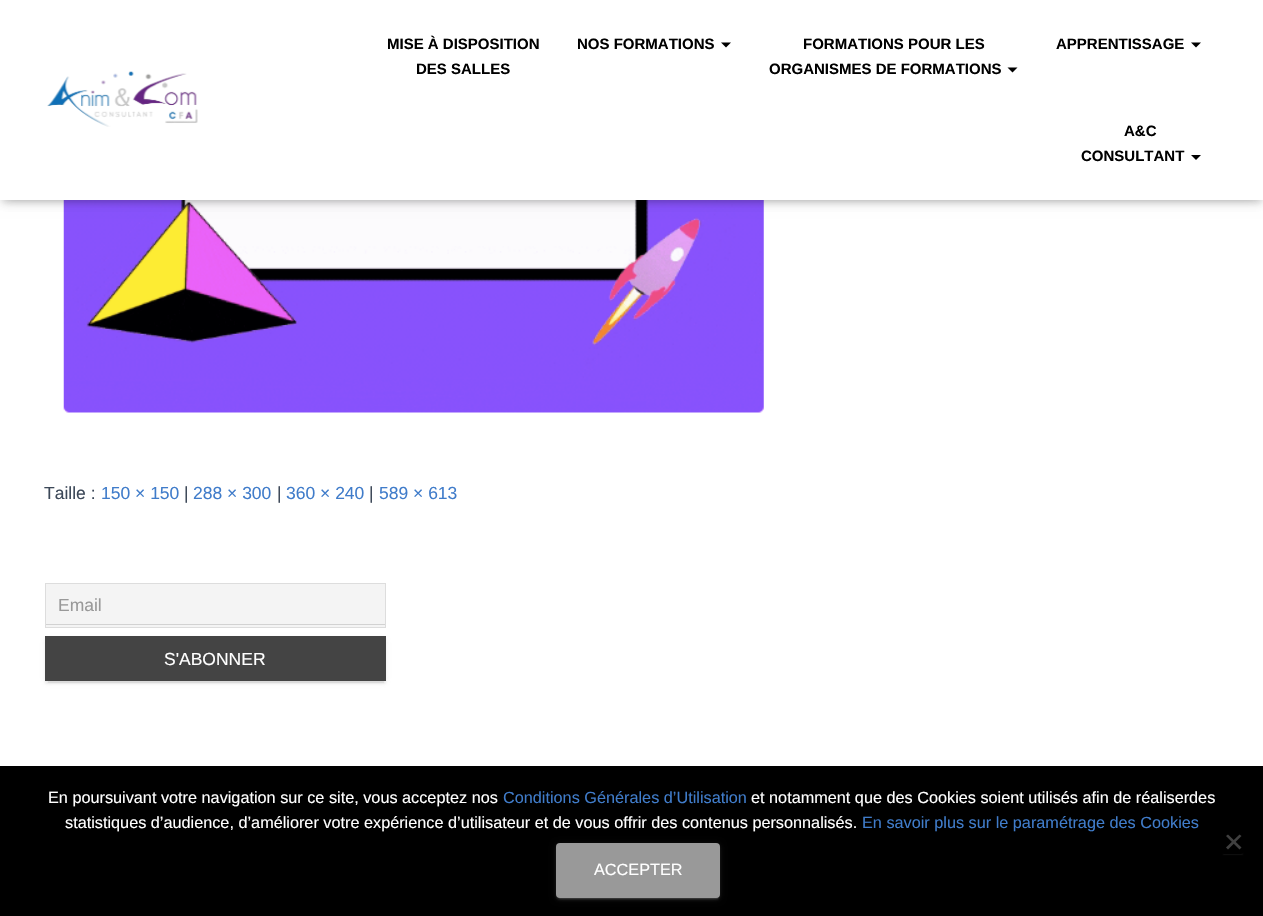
#include "include/core/SkBlurTypes.h"
#include "include/core/SkCanvas.h"
#include "include/core/SkData.h"
#include "include/core/SkFont.h"
#include "include/core/SkFontMgr.h"
#include "include/core/SkImage.h"
#include "include/core/SkMaskFilter.h"
#include "include/core/SkPaint.h"
#include "include/core/SkPathBuilder.h"
#include "include/core/SkTextBlob.h"
#include "include/effects/SkDashPathEffect.h"
#include "include/effects/SkGradientShader.h"
#include "include/utils/SkParsePath.h"

extern sk_sp<SkFontMgr> fontMgr;

static SkFont font(const char* family, int weight, float size, bool italic = false) {
    SkFontStyle style(weight, SkFontStyle::kNormal_Width,
        italic ? SkFontStyle::kItalic_Slant : SkFontStyle::kUpright_Slant);
    SkFont result(fontMgr->matchFamilyStyle(family, style), size);
    result.setSubpixel(true);
    return result;
}

static void drawLabel(SkCanvas* canvas, const char* s, float x, float y, const SkFont& font, SkColor color) {
    SkPaint ink(SkColor4f::FromColor(color));
    ink.setAntiAlias(true);
    canvas->drawString(s, x, y, font, ink);
}

static void fillRect(SkCanvas* canvas, float x, float y, float w, float h, SkColor color) {
    SkPaint ink(SkColor4f::FromColor(color));
    ink.setAntiAlias(true);
    canvas->drawRect(SkRect::MakeXYWH(x, y, w, h), ink);
}

static void fillRRect(SkCanvas* canvas, float x, float y, float w, float h, float radius, SkColor color) {
    SkPaint ink(SkColor4f::FromColor(color));
    ink.setAntiAlias(true);
    canvas->drawRoundRect(SkRect::MakeXYWH(x, y, w, h), radius, radius, ink);
}

static void drawPhoto(SkCanvas* canvas, const char* path, float x, float y, float w, float h) {
    auto image = SkImages::DeferredFromEncodedData(SkData::MakeFromFileName(path));
    canvas->drawImageRect(image, SkRect::MakeXYWH(x, y, w, h), SkSamplingOptions());
}

static SkPath parsePath(const char* data, bool evenOdd = false) {
    SkPath result = *SkParsePath::FromSVGString(data);
    if (evenOdd) result.setFillType(SkPathFillType::kEvenOdd);
    return result;
}

void draw(SkCanvas* canvas) {
    SkPaint paint;
    paint.setAntiAlias(true);
    canvas->clear(0xFFFFFFFF);
    drawPhoto(canvas, "assets/img2.png", 63, 200, 701, 213);
    paint.setColor(0x1A000000);
    paint.setMaskFilter(SkMaskFilter::MakeBlur(kNormal_SkBlurStyle, 3));
    canvas->drawRect(SkRect::MakeXYWH(3, 8, 1258, 195), paint);
    paint.setMaskFilter(nullptr);
    paint.setColor(0x1F000000);
    paint.setMaskFilter(SkMaskFilter::MakeBlur(kNormal_SkBlurStyle, 6));
    canvas->drawRect(SkRect::MakeXYWH(0, 1, 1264, 200), paint);
    paint.setMaskFilter(nullptr);
    paint.setColor(0x6B000000);
    paint.setMaskFilter(SkMaskFilter::MakeBlur(kNormal_SkBlurStyle, 6));
    canvas->drawRect(SkRect::MakeXYWH(8, 9, 1248, 185), paint);
    paint.setMaskFilter(nullptr);
    fillRect(canvas, 0, 0, 1263, 200, 0xFFFFFFFF);
    drawPhoto(canvas, "assets/img1.png", 47, 71, 151, 56);
    SkFont font1 = font("Liberation Sans", 700, 15);
    drawLabel(canvas, "MISE À DISPOSITION", 387, 49, font1, 0xFF000000);
    drawLabel(canvas, "DES SALLES", 416, 74, font1, 0xFF000000);
    drawLabel(canvas, "NOS FORMATIONS", 577, 49, font1, 0xFF000000);
    paint.setColor(0xFF000000);
    canvas->drawPath(parsePath("M721 42.5H731L726 47.5Z"), paint);
    drawLabel(canvas, "FORMATIONS POUR LES", 803, 49, font1, 0xFF000000);
    drawLabel(canvas, "ORGANISMES DE FORMATIONS", 769, 74, font1, 0xFF000000);
    canvas->drawPath(parsePath("M1007.5 67.5H1017.5L1012.5 72.5Z"), paint);
    drawLabel(canvas, "APPRENTISSAGE", 1056, 49, font1, 0xFF000000);
    canvas->drawPath(parsePath("M1191 42.5H1201L1196 47.5Z"), paint);
    drawLabel(canvas, "A&C", 1124, 136, font1, 0xFF000000);
    drawLabel(canvas, "CONSULTANT", 1081, 161, font1, 0xFF000000);
    canvas->drawPath(parsePath("M1191 155H1201L1196 160Z"), paint);
    SkFont font2 = font("Liberation Sans", 400, 17.5f);
    drawLabel(canvas, "Taille :", 44, 499, font2, 0xFF3C4858);
    drawLabel(canvas, "150 × 150", 101, 499, font2, 0xFF407CCA);
    drawLabel(canvas, "|", 184, 499, font2, 0xFF3C4858);
    drawLabel(canvas, "288 × 300", 193, 499, font2, 0xFF407CCA);
    drawLabel(canvas, "|", 277, 499, font2, 0xFF3C4858);
    drawLabel(canvas, "360 × 240", 286, 499, font2, 0xFF407CCA);
    drawLabel(canvas, "|", 369, 499, font2, 0xFF3C4858);
    drawLabel(canvas, "589 × 613", 379, 499, font2, 0xFF407CCA);
    fillRect(canvas, 46, 584, 339, 43, 0xFFF4F4F4);
    fillRect(canvas, 46, 624, 339, 1, 0xFFD2D2D2);
    paint.setStroke(true);
    paint.setStrokeWidth(1);
    paint.setColor(0xFFDDDDDD);
    canvas->drawRect(SkRect::MakeXYWH(45.5f, 583.5f, 340, 44), paint);
    drawLabel(canvas, "Email", 58, 611, font2, 0xFF999999);
    paint.setStroke(false);
    paint.setColor(0x1F999999);
    paint.setMaskFilter(SkMaskFilter::MakeBlur(kNormal_SkBlurStyle, 3));
    canvas->drawRect(SkRect::MakeXYWH(45, 638, 341, 45), paint);
    paint.setMaskFilter(nullptr);
    paint.setColor(0x33999999);
    paint.setMaskFilter(SkMaskFilter::MakeBlur(kNormal_SkBlurStyle, 0.5f));
    canvas->drawRect(SkRect::MakeXYWH(48, 643, 336, 40), paint);
    paint.setMaskFilter(nullptr);
    paint.setColor(0x24999999);
    paint.setMaskFilter(SkMaskFilter::MakeBlur(kNormal_SkBlurStyle, 1));
    canvas->drawRect(SkRect::MakeXYWH(45, 639, 341, 45), paint);
    paint.setMaskFilter(nullptr);
    fillRect(canvas, 45, 636, 341, 45, 0xFF444444);
    drawLabel(canvas, "S'ABONNER", 164, 665, font2, 0xFFFFFFFF);
    fillRect(canvas, 0, 766, 1263, 150, 0xFF000000);
    SkFont font3 = font("Liberation Sans", 400, 16.25f);
    drawLabel(canvas, "En poursuivant votre navigation sur ce site, vous acceptez nos", 48, 803, font3, 0xFFFFFFFF);
    drawLabel(canvas, "Conditions Générales d’Utilisation", 503, 803, font3, 0xFF407CCA);
    drawLabel(canvas, "et notamment que des Cookies soient utilisés afin de réaliserdes", 751, 803, font3, 0xFFFFFFFF);
    drawLabel(canvas, "statistiques d’audience, d’améliorer votre expérience d’utilisateur et de vous offrir des contenus personnalisés.", 65, 828, font3, 0xFFFFFFFF);
    drawLabel(canvas, "En savoir plus sur le paramétrage des Cookies", 862, 828, font3, 0xFF407CCA);
    canvas->save();
    canvas->clipPath(parsePath("M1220 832H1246V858H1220ZM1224 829H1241C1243 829 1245 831 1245 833V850C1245 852 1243 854 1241 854H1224C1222 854 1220 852 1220 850V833C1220 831 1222 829 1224 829Z", true), true);
    paint.setColor(0x334D4D4D);
    paint.setMaskFilter(SkMaskFilter::MakeBlur(kNormal_SkBlurStyle, 0.5f));
    canvas->drawRoundRect(SkRect::MakeXYWH(1223, 835, 20, 20), 1, 1, paint);
    paint.setMaskFilter(nullptr);
    canvas->restore();
    paint.setColor(0xFF404040);
    canvas->drawPath(parsePath("M1239.5 834.5L1241.5 836L1228 849.5L1226 847.5Z"), paint);
    canvas->drawPath(parsePath("M1226 836L1228 834.5L1241.5 847.5L1239.5 849.5Z"), paint);
    paint.setColor(0x1F999999);
    paint.setMaskFilter(SkMaskFilter::MakeBlur(kNormal_SkBlurStyle, 3));
    canvas->drawRoundRect(SkRect::MakeXYWH(556, 844, 164, 55), 4, 4, paint);
    paint.setMaskFilter(nullptr);
    paint.setColor(0x33999999);
    paint.setMaskFilter(SkMaskFilter::MakeBlur(kNormal_SkBlurStyle, 0.5f));
    canvas->drawRoundRect(SkRect::MakeXYWH(559, 849, 159, 50), 1, 1, paint);
    paint.setMaskFilter(nullptr);
    paint.setColor(0x24999999);
    paint.setMaskFilter(SkMaskFilter::MakeBlur(kNormal_SkBlurStyle, 1));
    canvas->drawRoundRect(SkRect::MakeXYWH(556, 845, 164, 55), 4, 4, paint);
    paint.setMaskFilter(nullptr);
    fillRRect(canvas, 556, 843, 164, 55, 4, 0xFF999999);
    drawLabel(canvas, "ACCEPTER", 594, 875, font3, 0xFFFFFFFF);
}
